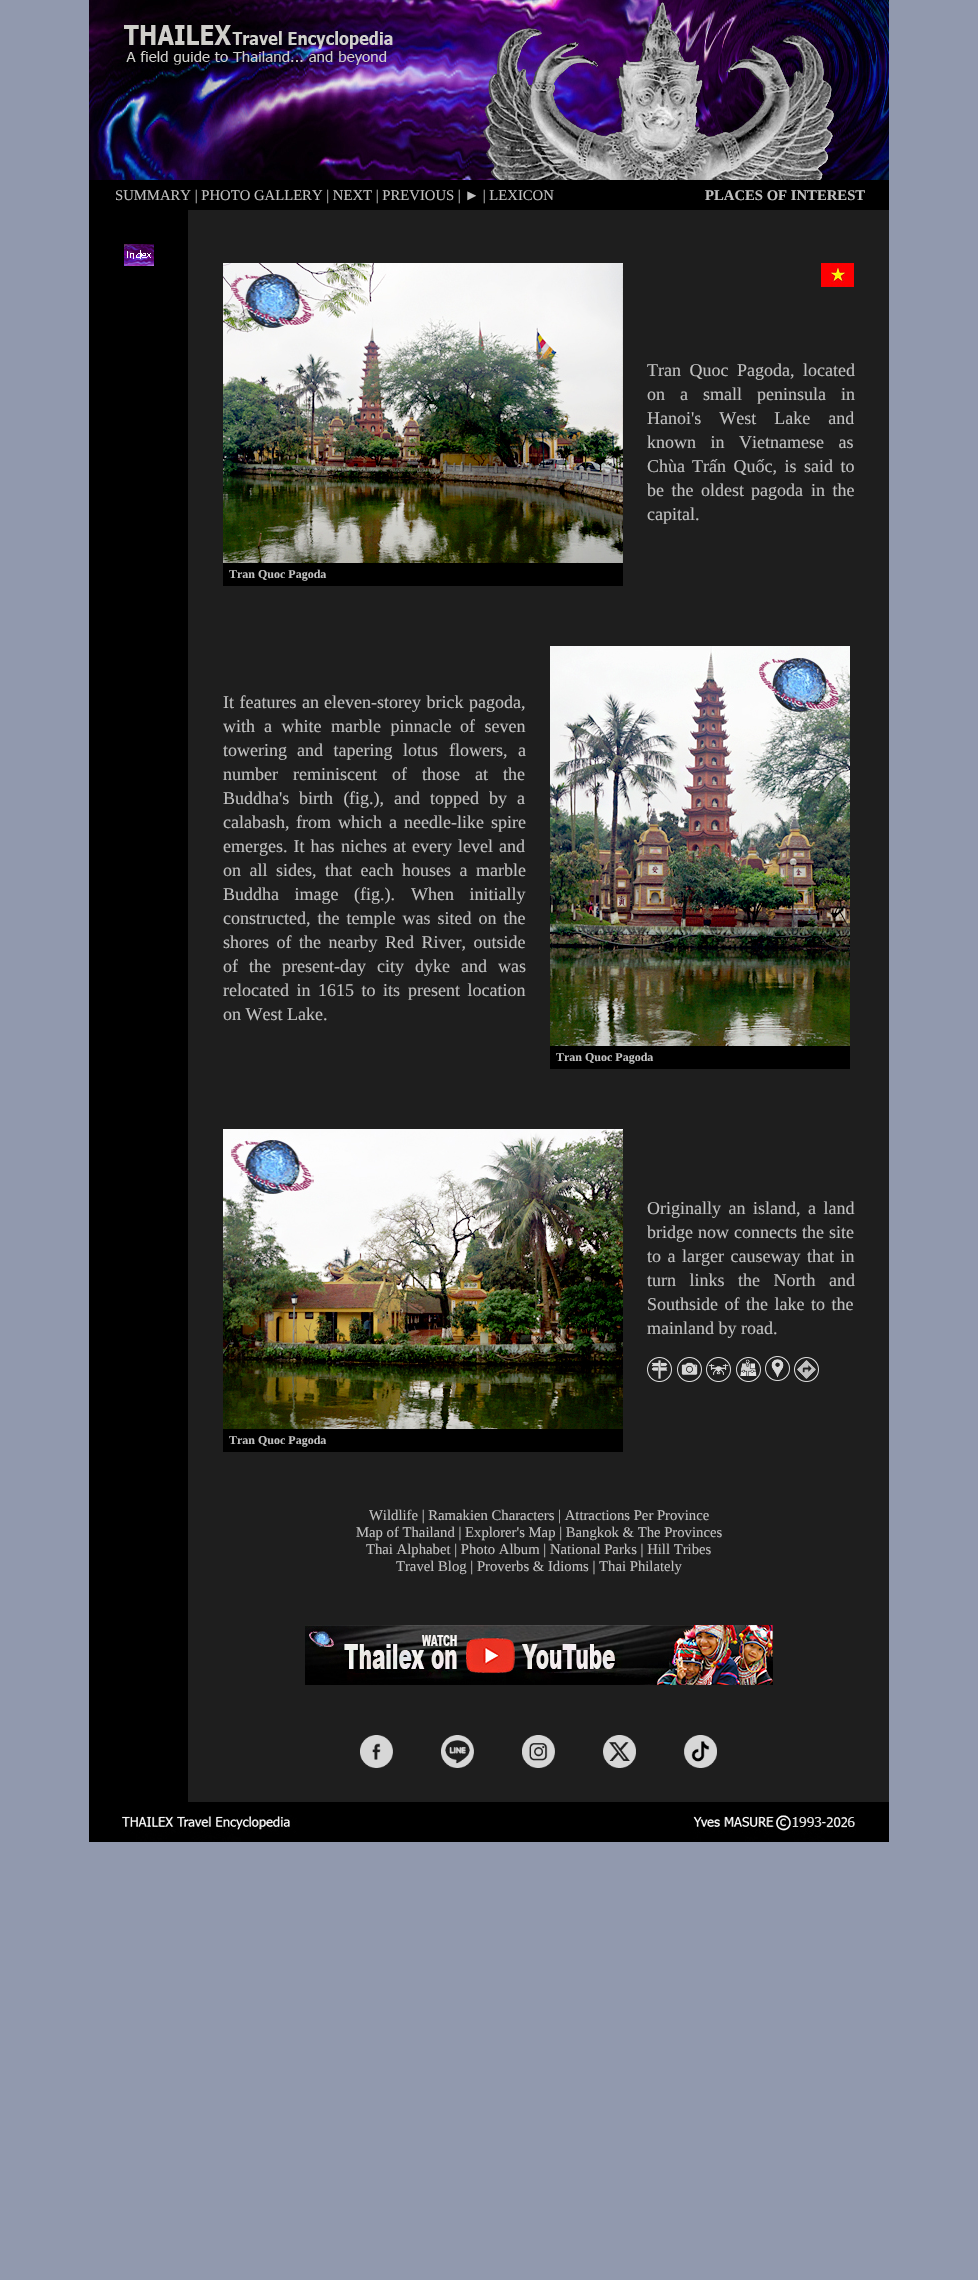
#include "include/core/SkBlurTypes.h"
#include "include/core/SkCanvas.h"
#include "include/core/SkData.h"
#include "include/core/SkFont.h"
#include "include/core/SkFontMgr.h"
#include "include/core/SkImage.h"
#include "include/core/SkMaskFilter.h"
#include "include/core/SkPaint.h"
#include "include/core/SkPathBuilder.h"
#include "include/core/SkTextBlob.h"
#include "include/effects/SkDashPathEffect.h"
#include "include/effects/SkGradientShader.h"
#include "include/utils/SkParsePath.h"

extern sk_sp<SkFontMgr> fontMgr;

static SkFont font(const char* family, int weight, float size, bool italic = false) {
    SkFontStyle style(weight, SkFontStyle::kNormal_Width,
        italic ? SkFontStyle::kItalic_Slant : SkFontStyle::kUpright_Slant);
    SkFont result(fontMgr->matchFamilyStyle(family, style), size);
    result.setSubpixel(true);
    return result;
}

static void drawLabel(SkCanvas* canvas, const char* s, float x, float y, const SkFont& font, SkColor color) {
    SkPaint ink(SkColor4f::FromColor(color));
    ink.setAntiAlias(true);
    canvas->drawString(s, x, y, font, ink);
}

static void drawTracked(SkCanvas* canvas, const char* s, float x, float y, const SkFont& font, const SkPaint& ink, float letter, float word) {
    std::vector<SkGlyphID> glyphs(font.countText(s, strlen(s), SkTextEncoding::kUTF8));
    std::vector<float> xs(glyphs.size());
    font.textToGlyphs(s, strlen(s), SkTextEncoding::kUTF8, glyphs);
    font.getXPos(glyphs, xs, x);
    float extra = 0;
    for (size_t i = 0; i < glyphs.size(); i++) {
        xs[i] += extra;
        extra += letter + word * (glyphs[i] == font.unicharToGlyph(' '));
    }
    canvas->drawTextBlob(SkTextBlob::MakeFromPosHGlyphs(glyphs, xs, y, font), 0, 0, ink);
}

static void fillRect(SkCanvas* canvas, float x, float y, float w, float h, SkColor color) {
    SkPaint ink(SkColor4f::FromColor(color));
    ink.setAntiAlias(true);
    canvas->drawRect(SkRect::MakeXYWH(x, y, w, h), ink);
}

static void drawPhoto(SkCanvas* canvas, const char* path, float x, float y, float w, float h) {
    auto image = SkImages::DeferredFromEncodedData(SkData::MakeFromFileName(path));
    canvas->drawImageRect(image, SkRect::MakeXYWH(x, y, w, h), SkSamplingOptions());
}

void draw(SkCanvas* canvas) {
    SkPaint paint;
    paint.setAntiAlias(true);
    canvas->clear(0xFF9199AE);
    drawPhoto(canvas, "assets/img1.png", 89, 0, 800, 180);
    fillRect(canvas, 89, 180, 800, 30, 0xFF000000);
    SkFont font1 = font("Liberation Serif", 400, 14.7f);
    drawLabel(canvas, "SUMMARY | PHOTO GALLERY | NEXT | PREVIOUS | ► | LEXICON", 115, 200, font1, 0xFFC0C0C0);
    SkFont font2 = font("Liberation Serif", 700, 14.7f);
    drawLabel(canvas, "PLACES OF INTEREST", 705, 200, font2, 0xFFC0C0C0);
    fillRect(canvas, 89, 210, 99, 1592, 0xFF000000);
    drawPhoto(canvas, "assets/img2.png", 124, 244, 30, 22);
    fillRect(canvas, 188, 210, 701, 1592, 0xFF1E1E1E);
    SkFont font3 = font("Liberation Serif", 400, 18);
    paint.setColor(0xFFC0C0C0);
    drawTracked(canvas, "Tran Quoc Pagoda, located", 647, 376, font3, paint, 0, 4);
    drawTracked(canvas, "on a small peninsula in", 647, 400, font3, paint, 0, 10.5f);
    drawTracked(canvas, "Hanoi's West Lake and", 647, 424, font3, paint, 0, 13.5f);
    drawTracked(canvas, "known in Vietnamese as", 647, 448, font3, paint, 0, 10);
    drawLabel(canvas, "Chùa", 647, 472, font3, 0xFFC0C0C0);
    drawTracked(canvas, "Trấn Quốc, is said to", 692, 472, font3, paint, 0, 3);
    drawTracked(canvas, "be the", 647, 496, font3, paint, 0, 3);
    drawLabel(canvas, "oldest", 701, 496, font3, 0xFFC0C0C0);
    drawLabel(canvas, "pagoda", 751, 496, font3, 0xFFC0C0C0);
    drawTracked(canvas, "in the", 811, 496, font3, paint, 0, 3);
    drawLabel(canvas, "capital.", 647, 520, font3, 0xFFC0C0C0);
    drawPhoto(canvas, "assets/img3.png", 821, 263, 33, 24);
    drawPhoto(canvas, "assets/img4.png", 223, 263, 400, 300);
    fillRect(canvas, 223, 563, 400, 23, 0xFF000000);
    SkFont font4 = font("Liberation Serif", 700, 12);
    drawLabel(canvas, "Tran Quoc Pagoda", 229, 578, font4, 0xFFC0C0C0);
    drawTracked(canvas, "It features an", 223, 708, font3, paint, 0, 1);
    drawTracked(canvas, "eleven-storey brick pagoda,", 324, 708, font3, paint, 0, 1);
    drawLabel(canvas, "with", 223, 732, font3, 0xFFC0C0C0);
    drawTracked(canvas, "a white marble pinnacle", 264, 732, font3, paint, 0, 5);
    drawTracked(canvas, "of seven", 460, 732, font3, paint, 0, 5);
    drawLabel(canvas, "towering", 223, 756, font3, 0xFFC0C0C0);
    drawTracked(canvas, "and tapering", 297, 756, font3, paint, 0, 6);
    drawLabel(canvas, "lotus", 403, 756, font3, 0xFFC0C0C0);
    drawTracked(canvas, "flowers, a", 449, 756, font3, paint, 0, 6);
    drawTracked(canvas, "number reminiscent of those at the", 223, 780, font3, paint, 0, 10.5f);
    drawLabel(canvas, "Buddha's", 223, 804, font3, 0xFFC0C0C0);
    drawTracked(canvas, "birth (", 299, 804, font3, paint, 0, 6);
    drawLabel(canvas, "fig.),", 349, 804, font3, 0xFFC0C0C0);
    drawTracked(canvas, "and topped by a", 394, 804, font3, paint, 0, 5.5f);
    drawLabel(canvas, "calabash,", 223, 828, font3, 0xFFC0C0C0);
    drawTracked(canvas, "from which a needle-like spire", 296, 828, font3, paint, 0, 2.5f);
    drawTracked(canvas, "emerges. It has", 223, 852, font3, paint, 0, 1.5f);
    drawLabel(canvas, "niches", 341, 852, font3, 0xFFC0C0C0);
    drawTracked(canvas, "at every level and", 393, 852, font3, paint, 0, 1.5f);
    drawTracked(canvas, "on all sides,", 223, 876, font3, paint, 0, 4);
    drawTracked(canvas, "that each houses a marble", 325, 876, font3, paint, 0, 4);
    drawTracked(canvas, "Buddha image", 223, 900, font3, paint, 0, 11);
    drawLabel(canvas, "(fig.).", 354, 900, font3, 0xFFC0C0C0);
    drawTracked(canvas, "When initially", 411, 900, font3, paint, 0, 11);
    drawTracked(canvas, "constructed, the temple was sited on the", 223, 924, font3, paint, 0, 2.5f);
    drawTracked(canvas, "shores of the nearby Red River, outside", 223, 948, font3, paint, 0, 3);
    drawTracked(canvas, "of the", 223, 972, font3, paint, 0, 6.5f);
    drawTracked(canvas, "present-day city dyke and was", 282, 972, font3, paint, 0, 6.5f);
    drawTracked(canvas, "relocated in 1615 to its", 223, 996, font3, paint, 0, 3);
    drawTracked(canvas, "present location", 408, 996, font3, paint, 0, 3);
    drawLabel(canvas, "on West Lake.", 223, 1020, font3, 0xFFC0C0C0);
    drawPhoto(canvas, "assets/img5.png", 550, 646, 300, 400);
    fillRect(canvas, 550, 1046, 300, 23, 0xFF000000);
    drawLabel(canvas, "Tran Quoc Pagoda", 556, 1061, font4, 0xFFC0C0C0);
    drawTracked(canvas, "Originally an island, a land", 647, 1214, font3, paint, 0, 3);
    drawLabel(canvas, "bridge", 647, 1238, font3, 0xFFC0C0C0);
    drawTracked(canvas, "now connects the site", 698, 1238, font3, paint, 0, 0.5f);
    drawTracked(canvas, "to a larger causeway that in", 647, 1262, font3, paint, 0, 2);
    drawTracked(canvas, "turn links the North and", 647, 1286, font3, paint, 0, 9);
    drawTracked(canvas, "Southside of the lake to the", 647, 1310, font3, paint, 0, 2);
    drawLabel(canvas, "mainland by road.", 647, 1334, font3, 0xFFC0C0C0);
    drawPhoto(canvas, "assets/img6.png", 647, 1357, 25, 25);
    drawPhoto(canvas, "assets/img7.png", 677, 1357, 25, 25);
    drawPhoto(canvas, "assets/img8.png", 706, 1357, 25, 25);
    drawPhoto(canvas, "assets/img9.png", 736, 1357, 25, 25);
    drawPhoto(canvas, "assets/img10.png", 765, 1356, 25, 25);
    drawPhoto(canvas, "assets/img11.png", 794, 1357, 25, 25);
    drawPhoto(canvas, "assets/img12.png", 223, 1129, 400, 300);
    fillRect(canvas, 223, 1429, 400, 23, 0xFF000000);
    drawLabel(canvas, "Tran Quoc Pagoda", 229, 1444, font4, 0xFFC0C0C0);
    drawLabel(canvas, "Wildlife | Ramakien Characters | Attractions Per Province", 369, 1520, font1, 0xFFC0C0C0);
    drawLabel(canvas, "Map of Thailand | Explorer's Map | Bangkok & The Provinces", 356, 1537, font1, 0xFFC0C0C0);
    drawLabel(canvas, "Thai Alphabet | Photo Album | National Parks | Hill Tribes", 366, 1554, font1, 0xFFC0C0C0);
    drawLabel(canvas, "Travel Blog | Proverbs & Idioms | Thai Philately", 396, 1571, font1, 0xFFC0C0C0);
    drawPhoto(canvas, "assets/img13.png", 305, 1625, 468, 60);
    drawPhoto(canvas, "assets/img14.png", 360, 1735, 33, 33);
    drawPhoto(canvas, "assets/img15.png", 441, 1735, 33, 33);
    drawPhoto(canvas, "assets/img16.png", 522, 1735, 33, 33);
    drawPhoto(canvas, "assets/img17.png", 603, 1735, 33, 33);
    drawPhoto(canvas, "assets/img18.png", 684, 1735, 33, 33);
    drawPhoto(canvas, "assets/img19.png", 89, 1802, 800, 40);
}
